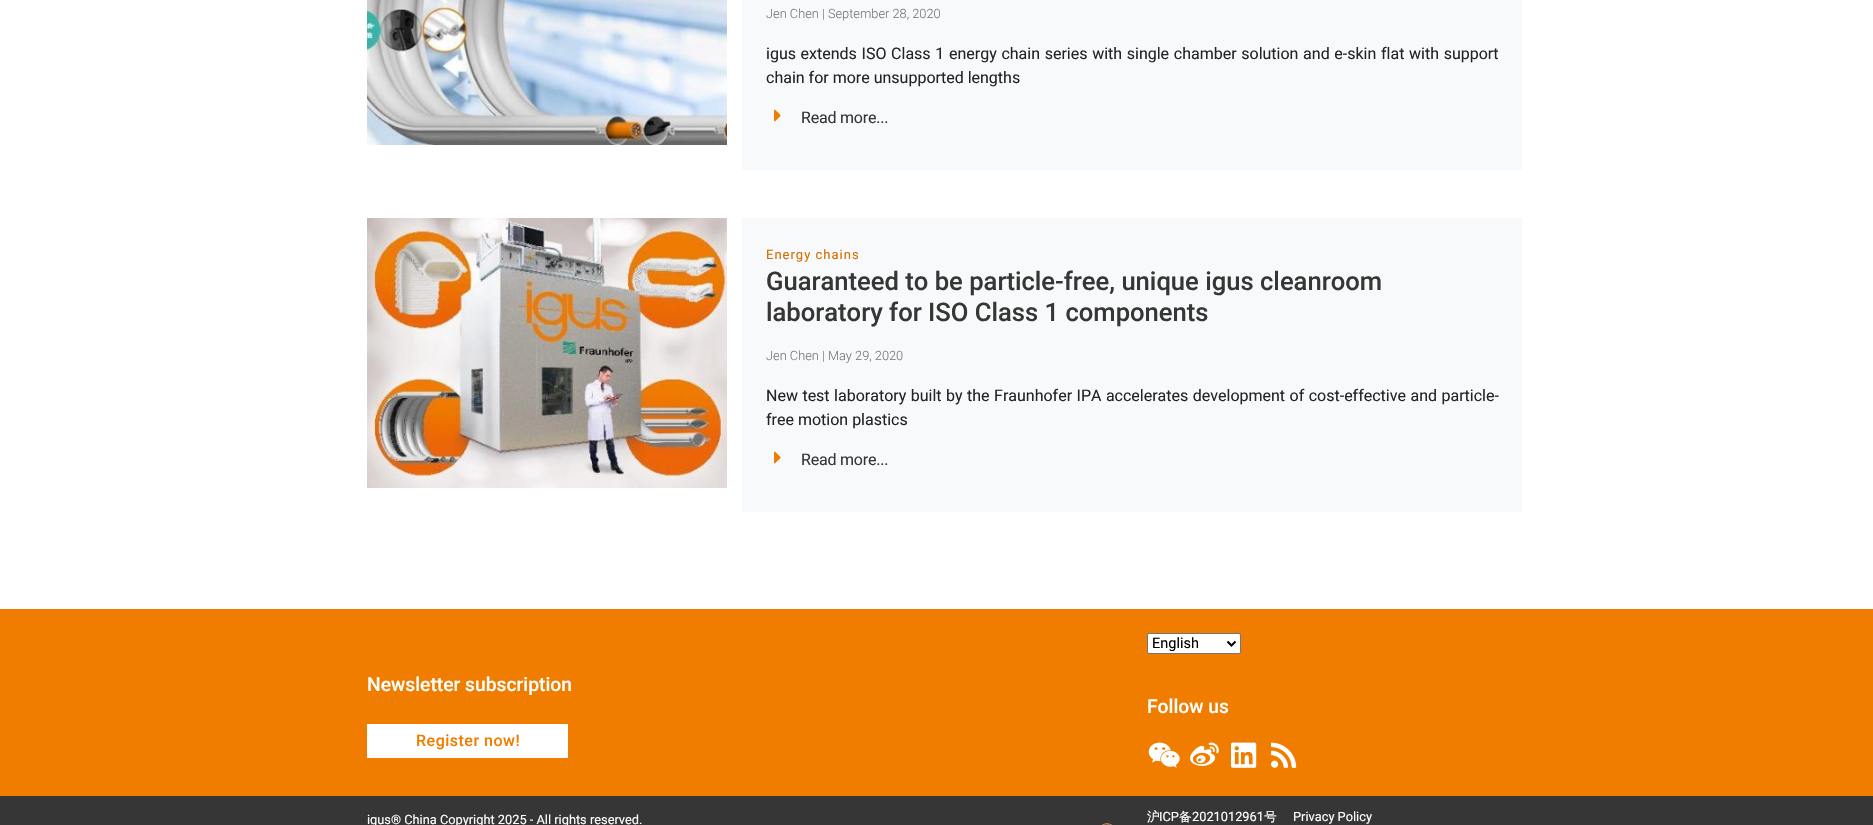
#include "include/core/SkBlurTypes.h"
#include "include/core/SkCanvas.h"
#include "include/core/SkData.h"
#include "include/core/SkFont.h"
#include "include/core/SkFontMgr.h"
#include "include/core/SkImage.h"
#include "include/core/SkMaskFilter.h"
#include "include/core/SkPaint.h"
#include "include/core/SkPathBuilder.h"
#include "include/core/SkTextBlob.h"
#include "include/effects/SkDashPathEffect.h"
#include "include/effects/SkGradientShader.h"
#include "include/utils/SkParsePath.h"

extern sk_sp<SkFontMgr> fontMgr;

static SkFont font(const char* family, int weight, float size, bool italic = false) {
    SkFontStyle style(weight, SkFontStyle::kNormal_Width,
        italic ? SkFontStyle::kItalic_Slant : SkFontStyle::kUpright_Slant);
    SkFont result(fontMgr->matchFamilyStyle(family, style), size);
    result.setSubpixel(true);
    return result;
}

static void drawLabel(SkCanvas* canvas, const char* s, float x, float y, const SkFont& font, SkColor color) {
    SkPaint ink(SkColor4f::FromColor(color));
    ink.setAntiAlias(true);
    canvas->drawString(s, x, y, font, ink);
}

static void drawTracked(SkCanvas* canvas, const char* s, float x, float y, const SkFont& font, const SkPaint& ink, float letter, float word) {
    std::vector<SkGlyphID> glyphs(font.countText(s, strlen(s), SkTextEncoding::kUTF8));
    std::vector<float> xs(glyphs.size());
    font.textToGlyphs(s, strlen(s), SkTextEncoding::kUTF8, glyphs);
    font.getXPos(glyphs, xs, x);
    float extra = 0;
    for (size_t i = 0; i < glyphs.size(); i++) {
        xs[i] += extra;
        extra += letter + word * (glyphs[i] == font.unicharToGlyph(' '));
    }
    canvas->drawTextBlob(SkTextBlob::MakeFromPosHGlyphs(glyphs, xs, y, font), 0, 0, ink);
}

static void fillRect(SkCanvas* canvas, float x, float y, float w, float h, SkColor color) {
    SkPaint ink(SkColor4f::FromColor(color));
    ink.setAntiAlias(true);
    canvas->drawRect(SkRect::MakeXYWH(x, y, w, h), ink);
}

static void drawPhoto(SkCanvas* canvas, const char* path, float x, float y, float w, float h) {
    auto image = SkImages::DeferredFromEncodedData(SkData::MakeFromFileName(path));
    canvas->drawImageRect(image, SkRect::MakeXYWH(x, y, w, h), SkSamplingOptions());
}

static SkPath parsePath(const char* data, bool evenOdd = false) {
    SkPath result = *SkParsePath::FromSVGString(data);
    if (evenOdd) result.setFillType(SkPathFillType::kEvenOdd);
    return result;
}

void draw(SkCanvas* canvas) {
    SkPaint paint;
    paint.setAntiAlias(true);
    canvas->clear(0xFFFFFFFF);
    drawPhoto(canvas, "assets/img1.png", 367, 0, 360, 145);
    fillRect(canvas, 742, 0, 780, 170, 0xFFF8F9FA);
    SkFont font1 = font("Roboto", 300, 12.8f);
    drawLabel(canvas, "Jen Chen | September 28, 2020", 766, 18, font1, 0xFF787878);
    SkFont font2 = font("Roboto", 400, 16);
    paint.setColor(0xFF212529);
    drawTracked(canvas, "igus extends ISO Class 1 energy chain series with single chamber solution and e-skin flat with support", 766, 59, font2, paint, 0, 0.7f);
    drawLabel(canvas, "chain for more unsupported lengths", 766, 83, font2, 0xFF212529);
    drawPhoto(canvas, "assets/img2.png", 774, 109, 7, 13);
    paint.setColor(0xFF363636);
    drawTracked(canvas, "Read more...", 801, 123, font2, paint, -0.2f, 0);
    drawPhoto(canvas, "assets/img3.png", 367, 218, 360, 270);
    fillRect(canvas, 742, 218, 780, 294, 0xFFF8F9FA);
    SkFont font3 = font("Roboto", 400, 13);
    paint.setColor(0xFFD26E00);
    drawTracked(canvas, "Energy chains", 766, 259, font3, paint, 1, 0);
    SkFont font4 = font("Roboto", 500, 25.6f);
    drawLabel(canvas, "Guaranteed to be particle-free, unique igus cleanroom", 766, 290, font4, 0xFF363636);
    drawLabel(canvas, "laboratory for ISO Class 1 components", 766, 321, font4, 0xFF363636);
    drawLabel(canvas, "Jen Chen | May 29, 2020", 766, 360, font1, 0xFF787878);
    paint.setColor(0xFF212529);
    drawTracked(canvas, "New test laboratory built by the Fraunhofer IPA accelerates development of cost-effective and particle-", 766, 401, font2, paint, 0, 0.5f);
    drawLabel(canvas, "free motion plastics", 766, 425, font2, 0xFF212529);
    drawPhoto(canvas, "assets/img2.png", 774, 451, 7, 13);
    paint.setColor(0xFF363636);
    drawTracked(canvas, "Read more...", 801, 465, font2, paint, -0.2f, 0);
    fillRect(canvas, 0, 609, 1873, 187, 0xFFF07D00);
    SkFont font5 = font("Roboto", 500, 19.25f);
    drawLabel(canvas, "Newsletter subscription", 367, 691, font5, 0xFFFFFFFF);
    fillRect(canvas, 367, 724, 201, 34, 0xFFFFFFFF);
    SkFont font6 = font("Roboto", 500, 16);
    paint.setColor(0xFFF07D00);
    drawTracked(canvas, "Register now!", 416, 746, font6, paint, 0.5f, 0);
    paint.setColor(0xFFFFFFFF);
    canvas->drawRoundRect(SkRect::MakeXYWH(1147.5f, 633.5f, 93, 20), 1.5f, 1.5f, paint);
    paint.setStroke(true);
    paint.setStrokeWidth(1);
    paint.setColor(0xFF767676);
    canvas->drawRoundRect(SkRect::MakeXYWH(1147.5f, 633.5f, 93, 20), 1.5f, 1.5f, paint);
    paint.setStrokeWidth(2);
    paint.setColor(0xFF000000);
    canvas->drawPath(parsePath("M1227.5 641.5L1231.5 645.5L1235.5 641.5"), paint);
    SkFont font7 = font("Roboto", 400, 14.5f);
    drawLabel(canvas, "English", 1152, 648, font7, 0xFF000000);
    drawLabel(canvas, "Follow us", 1147, 713, font5, 0xFFFFFFFF);
    drawPhoto(canvas, "assets/img4.png", 1148, 742, 32, 26);
    drawPhoto(canvas, "assets/img5.png", 1190, 742, 29, 24);
    drawPhoto(canvas, "assets/img6.png", 1231, 742, 26, 26);
    drawPhoto(canvas, "assets/img7.png", 1271, 742, 26, 26);
    fillRect(canvas, 0, 796, 1873, 29, 0xFF363636);
    SkFont font8 = font("Roboto", 400, 12.8f);
    drawLabel(canvas, "igus® China Copyright 2025 - All rights reserved.", 367, 824, font8, 0xFFFFFFFF);
    drawPhoto(canvas, "assets/img8.png", 1102, 823, 10, 2);
    SkFont font9 = font("WenQuanYi Zen Hei", 500, 12.8f);
    drawLabel(canvas, "沪", 1147, 821, font9, 0xFFFFFFFF);
    drawLabel(canvas, "ICP", 1159, 821, font8, 0xFFFFFFFF);
    drawLabel(canvas, "备", 1179, 821, font9, 0xFFFFFFFF);
    drawLabel(canvas, "2021012961", 1192, 821, font8, 0xFFFFFFFF);
    drawLabel(canvas, "号", 1264, 821, font9, 0xFFFFFFFF);
    drawLabel(canvas, "Privacy Policy", 1293, 821, font8, 0xFFFFFFFF);
}
